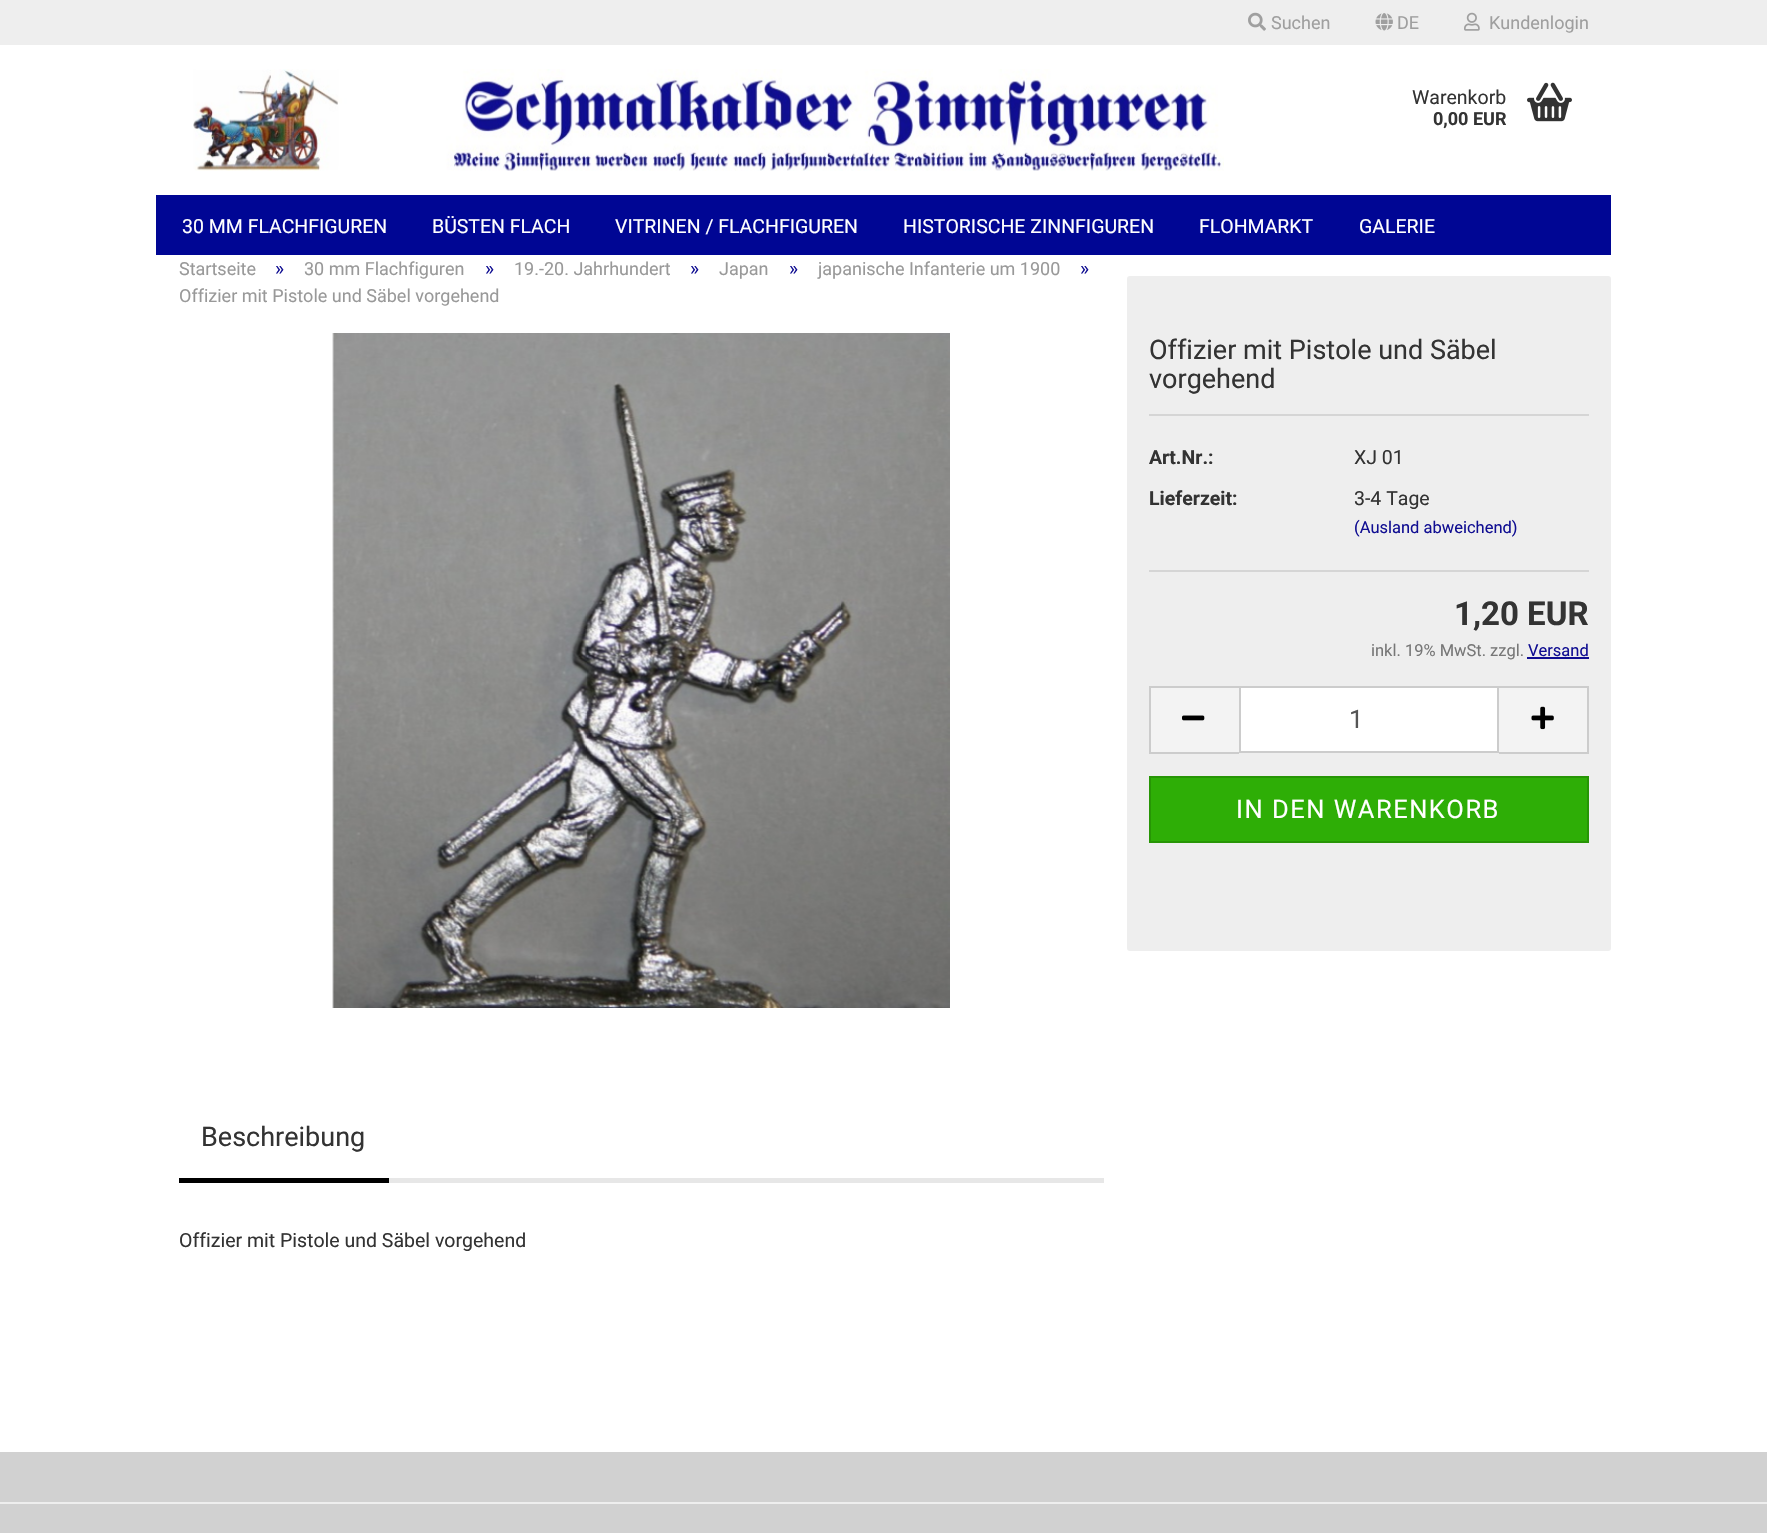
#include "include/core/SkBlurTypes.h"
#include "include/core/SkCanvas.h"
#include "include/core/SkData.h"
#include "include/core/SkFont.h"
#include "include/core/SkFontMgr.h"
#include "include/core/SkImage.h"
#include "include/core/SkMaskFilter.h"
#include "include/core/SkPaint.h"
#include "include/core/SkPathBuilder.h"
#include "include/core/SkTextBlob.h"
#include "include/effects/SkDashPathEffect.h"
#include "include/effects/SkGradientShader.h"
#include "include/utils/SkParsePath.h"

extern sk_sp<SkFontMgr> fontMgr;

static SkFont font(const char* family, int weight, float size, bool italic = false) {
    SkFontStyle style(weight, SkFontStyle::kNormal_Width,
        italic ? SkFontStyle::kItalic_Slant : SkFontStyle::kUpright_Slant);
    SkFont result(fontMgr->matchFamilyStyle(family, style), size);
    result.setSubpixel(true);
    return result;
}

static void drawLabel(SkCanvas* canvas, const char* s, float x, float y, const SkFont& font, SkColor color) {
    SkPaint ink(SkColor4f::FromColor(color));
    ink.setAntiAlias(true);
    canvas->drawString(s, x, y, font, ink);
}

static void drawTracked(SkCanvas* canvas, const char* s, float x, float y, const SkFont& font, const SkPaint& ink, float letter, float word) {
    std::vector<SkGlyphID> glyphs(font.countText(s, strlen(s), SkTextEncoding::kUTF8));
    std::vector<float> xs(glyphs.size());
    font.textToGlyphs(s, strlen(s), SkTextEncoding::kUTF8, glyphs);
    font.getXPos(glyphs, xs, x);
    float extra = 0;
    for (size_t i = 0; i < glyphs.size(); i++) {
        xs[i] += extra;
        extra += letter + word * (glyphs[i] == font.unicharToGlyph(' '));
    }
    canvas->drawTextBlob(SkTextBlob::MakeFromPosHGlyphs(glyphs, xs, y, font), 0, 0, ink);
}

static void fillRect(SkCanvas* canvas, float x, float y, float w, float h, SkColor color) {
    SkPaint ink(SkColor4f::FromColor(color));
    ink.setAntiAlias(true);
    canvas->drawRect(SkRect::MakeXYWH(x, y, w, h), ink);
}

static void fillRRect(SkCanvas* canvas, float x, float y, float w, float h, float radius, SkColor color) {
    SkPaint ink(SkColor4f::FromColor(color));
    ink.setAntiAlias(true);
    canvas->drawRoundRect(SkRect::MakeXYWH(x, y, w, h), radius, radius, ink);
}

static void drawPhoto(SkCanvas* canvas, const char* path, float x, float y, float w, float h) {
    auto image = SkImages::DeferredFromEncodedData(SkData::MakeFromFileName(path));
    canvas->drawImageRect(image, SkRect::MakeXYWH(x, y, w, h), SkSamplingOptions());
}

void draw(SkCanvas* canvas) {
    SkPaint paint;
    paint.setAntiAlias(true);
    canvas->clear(0xFFFFFFFF);
    fillRect(canvas, 0, 0, 1767, 45, 0xFFEEEEEE);
    drawPhoto(canvas, "assets/img1.png", 1248, 12, 18, 19);
    SkFont font1 = font("Roboto", 400, 18);
    drawLabel(canvas, "Suchen", 1271, 29, font1, 0xFF9F9F9F);
    drawPhoto(canvas, "assets/img2.png", 1375, 13, 18, 18);
    drawLabel(canvas, "DE", 1397, 29, font1, 0xFF9F9F9F);
    drawPhoto(canvas, "assets/img3.png", 1464, 12, 16, 19);
    drawLabel(canvas, "Kundenlogin", 1489, 29, font1, 0xFF9F9F9F);
    drawPhoto(canvas, "assets/img4.png", 193, 69, 1031, 102);
    SkFont font2 = font("Roboto", 400, 19.5f);
    drawLabel(canvas, "Warenkorb", 1412, 104, font2, 0xFF333333);
    SkFont font3 = font("Roboto", 700, 18);
    drawLabel(canvas, "0,00 EUR", 1433, 125, font3, 0xFF333333);
    drawPhoto(canvas, "assets/img5.png", 1527, 82, 45, 40);
    fillRect(canvas, 156, 195, 1455, 60, 0xFF000694);
    drawLabel(canvas, "30 MM FLACHFIGUREN", 182, 233, font2, 0xFFFFFFFF);
    drawLabel(canvas, "BÜSTEN FLACH", 432, 233, font2, 0xFFFFFFFF);
    drawLabel(canvas, "VITRINEN / FLACHFIGUREN", 615, 233, font2, 0xFFFFFFFF);
    drawLabel(canvas, "HISTORISCHE ZINNFIGUREN", 903, 233, font2, 0xFFFFFFFF);
    drawLabel(canvas, "FLOHMARKT", 1199, 233, font2, 0xFFFFFFFF);
    drawLabel(canvas, "GALERIE", 1359, 233, font2, 0xFFFFFFFF);
    drawLabel(canvas, "Startseite", 179, 275, font1, 0xFF999999);
    drawLabel(canvas, "»", 275, 275, font2, 0xFF100E92);
    drawLabel(canvas, "30 mm Flachfiguren", 304, 275, font1, 0xFF999999);
    drawLabel(canvas, "»", 485, 275, font2, 0xFF100E92);
    drawLabel(canvas, "19.-20. Jahrhundert", 514, 275, font1, 0xFF999999);
    drawLabel(canvas, "»", 690, 275, font2, 0xFF100E92);
    drawLabel(canvas, "Japan", 719, 275, font1, 0xFF999999);
    drawLabel(canvas, "»", 789, 275, font2, 0xFF100E92);
    drawLabel(canvas, "japanische Infanterie um 1900", 818, 275, font1, 0xFF999999);
    drawLabel(canvas, "»", 1080, 275, font2, 0xFF100E92);
    drawLabel(canvas, "Offizier mit Pistole und Säbel vorgehend", 179, 302, font1, 0xFF999999);
    drawPhoto(canvas, "assets/img6.png", 332, 333, 618, 675);
    fillRRect(canvas, 1127, 276, 484, 675, 3, 0xFFEEEEEE);
    fillRect(canvas, 1149, 414, 440, 2, 0xFFD5D5D5);
    SkFont font4 = font("Roboto", 400, 27);
    drawLabel(canvas, "Offizier mit Pistole und Säbel", 1149, 359, font4, 0xFF333333);
    drawLabel(canvas, "vorgehend", 1149, 388, font4, 0xFF333333);
    fillRect(canvas, 1149, 570, 440, 2, 0xFFD5D5D5);
    SkFont font5 = font("Roboto", 700, 19.5f);
    drawLabel(canvas, "Art.Nr.:", 1149, 464, font5, 0xFF333333);
    drawLabel(canvas, "XJ 01", 1354, 464, font2, 0xFF333333);
    drawLabel(canvas, "Lieferzeit:", 1149, 505, font5, 0xFF333333);
    drawLabel(canvas, "3-4 Tage", 1354, 505, font2, 0xFF333333);
    SkFont font6 = font("Roboto", 400, 16.5f);
    drawLabel(canvas, "(Ausland abweichend)", 1354, 533, font6, 0xFF100E92);
    SkFont font7 = font("Roboto", 700, 33);
    drawLabel(canvas, "1,20 EUR", 1454, 625, font7, 0xFF333333);
    drawLabel(canvas, "inkl. 19% MwSt. zzgl.", 1371, 656, font6, 0xFF777777);
    drawLabel(canvas, "Versand", 1528, 656, font6, 0xFF100E92);
    fillRect(canvas, 1527, 657, 62, 2, 0xFF100E92);
    fillRect(canvas, 1151, 688, 88, 64, 0xFFF3F3F3);
    fillRect(canvas, 1149, 686, 90, 2, 0xFFCCCCCC);
    fillRect(canvas, 1149, 752, 90, 2, 0xFFCCCCCC);
    fillRect(canvas, 1149, 686, 2, 67, 0xFFCCCCCC);
    drawPhoto(canvas, "assets/img7.png", 1182, 715, 23, 6);
    paint.setColor(0xFFFFFFFF);
    canvas->drawRect(SkRect::MakeXYWH(1240, 687, 258, 65), paint);
    paint.setStroke(true);
    paint.setStrokeWidth(2);
    paint.setColor(0xFFCCCCCC);
    canvas->drawRect(SkRect::MakeXYWH(1240, 687, 258, 65), paint);
    SkFont font8 = font("Roboto", 400, 25.5f);
    drawLabel(canvas, "1", 1349, 728, font8, 0xFF555555);
    fillRect(canvas, 1499, 688, 88, 64, 0xFFF3F3F3);
    fillRect(canvas, 1499, 686, 90, 2, 0xFFCCCCCC);
    fillRect(canvas, 1587, 686, 2, 67, 0xFFCCCCCC);
    fillRect(canvas, 1499, 752, 90, 2, 0xFFCCCCCC);
    drawPhoto(canvas, "assets/img8.png", 1531, 706, 23, 24);
    paint.setStroke(false);
    paint.setColor(0xFF2EAE06);
    canvas->drawRect(SkRect::MakeXYWH(1150, 777, 438, 65), paint);
    paint.setStroke(true);
    paint.setColor(0xFF279505);
    canvas->drawRect(SkRect::MakeXYWH(1150, 777, 438, 65), paint);
    paint.setStroke(false);
    paint.setColor(0xFFFFFFFF);
    drawTracked(canvas, "IN DEN WARENKORB", 1236, 818, font8, paint, 1.5f, 0);
    fillRect(canvas, 389, 1178, 715, 5, 0xFFE7E7E7);
    fillRect(canvas, 179, 1178, 210, 5, 0xFF000000);
    drawLabel(canvas, "Beschreibung", 201, 1146, font4, 0xFF333333);
    drawLabel(canvas, "Offizier mit Pistole und Säbel vorgehend", 179, 1247, font2, 0xFF333333);
    fillRect(canvas, 0, 1452, 1767, 81, 0xFFD1D1D1);
    fillRect(canvas, 0, 1502, 1767, 2, 0xFFEEEEEE);
}
